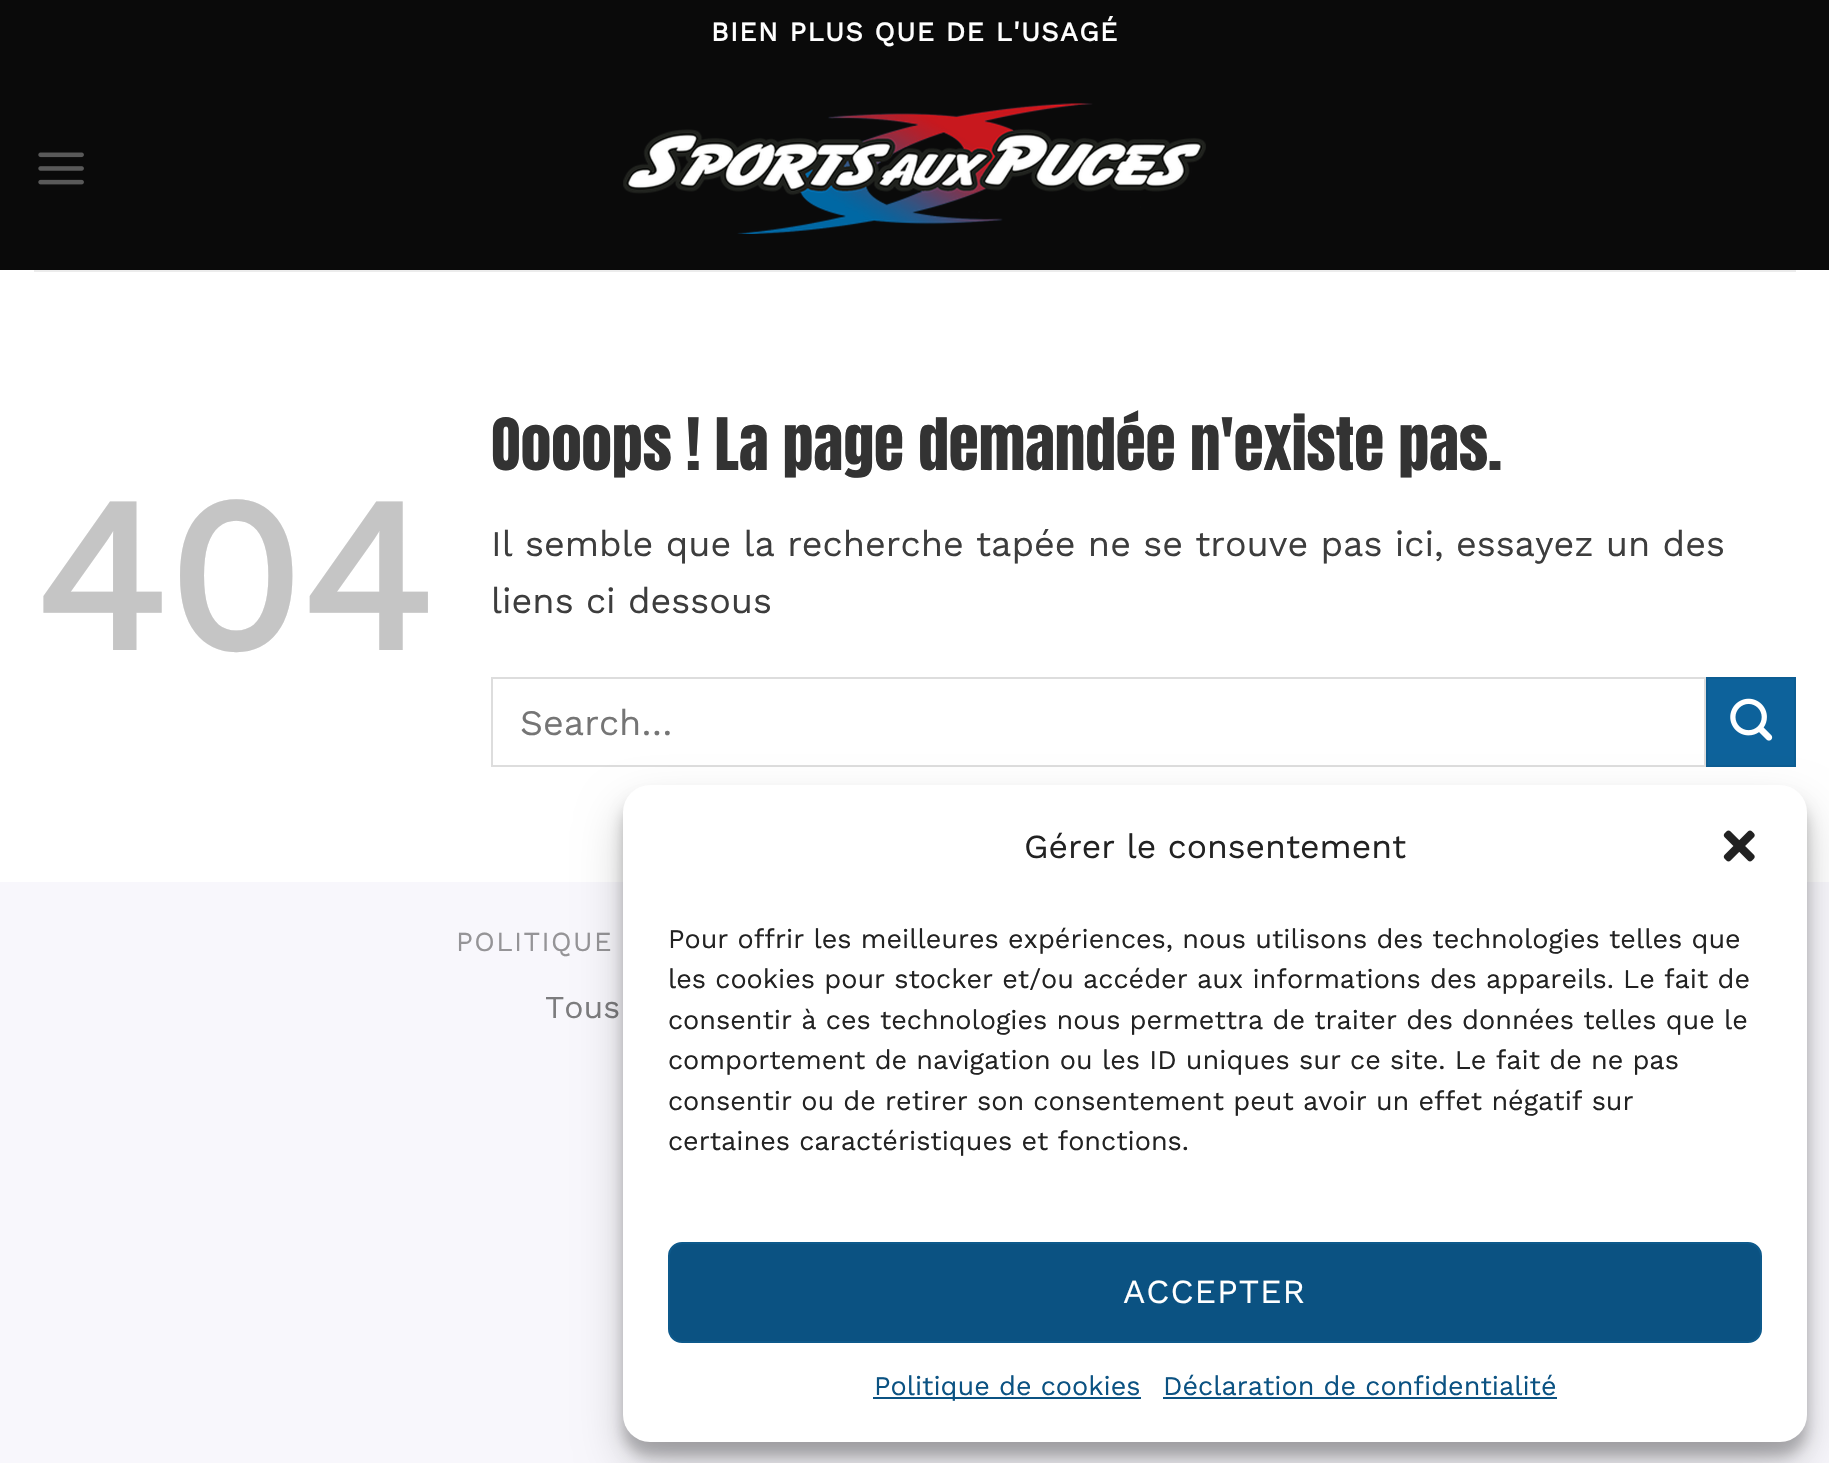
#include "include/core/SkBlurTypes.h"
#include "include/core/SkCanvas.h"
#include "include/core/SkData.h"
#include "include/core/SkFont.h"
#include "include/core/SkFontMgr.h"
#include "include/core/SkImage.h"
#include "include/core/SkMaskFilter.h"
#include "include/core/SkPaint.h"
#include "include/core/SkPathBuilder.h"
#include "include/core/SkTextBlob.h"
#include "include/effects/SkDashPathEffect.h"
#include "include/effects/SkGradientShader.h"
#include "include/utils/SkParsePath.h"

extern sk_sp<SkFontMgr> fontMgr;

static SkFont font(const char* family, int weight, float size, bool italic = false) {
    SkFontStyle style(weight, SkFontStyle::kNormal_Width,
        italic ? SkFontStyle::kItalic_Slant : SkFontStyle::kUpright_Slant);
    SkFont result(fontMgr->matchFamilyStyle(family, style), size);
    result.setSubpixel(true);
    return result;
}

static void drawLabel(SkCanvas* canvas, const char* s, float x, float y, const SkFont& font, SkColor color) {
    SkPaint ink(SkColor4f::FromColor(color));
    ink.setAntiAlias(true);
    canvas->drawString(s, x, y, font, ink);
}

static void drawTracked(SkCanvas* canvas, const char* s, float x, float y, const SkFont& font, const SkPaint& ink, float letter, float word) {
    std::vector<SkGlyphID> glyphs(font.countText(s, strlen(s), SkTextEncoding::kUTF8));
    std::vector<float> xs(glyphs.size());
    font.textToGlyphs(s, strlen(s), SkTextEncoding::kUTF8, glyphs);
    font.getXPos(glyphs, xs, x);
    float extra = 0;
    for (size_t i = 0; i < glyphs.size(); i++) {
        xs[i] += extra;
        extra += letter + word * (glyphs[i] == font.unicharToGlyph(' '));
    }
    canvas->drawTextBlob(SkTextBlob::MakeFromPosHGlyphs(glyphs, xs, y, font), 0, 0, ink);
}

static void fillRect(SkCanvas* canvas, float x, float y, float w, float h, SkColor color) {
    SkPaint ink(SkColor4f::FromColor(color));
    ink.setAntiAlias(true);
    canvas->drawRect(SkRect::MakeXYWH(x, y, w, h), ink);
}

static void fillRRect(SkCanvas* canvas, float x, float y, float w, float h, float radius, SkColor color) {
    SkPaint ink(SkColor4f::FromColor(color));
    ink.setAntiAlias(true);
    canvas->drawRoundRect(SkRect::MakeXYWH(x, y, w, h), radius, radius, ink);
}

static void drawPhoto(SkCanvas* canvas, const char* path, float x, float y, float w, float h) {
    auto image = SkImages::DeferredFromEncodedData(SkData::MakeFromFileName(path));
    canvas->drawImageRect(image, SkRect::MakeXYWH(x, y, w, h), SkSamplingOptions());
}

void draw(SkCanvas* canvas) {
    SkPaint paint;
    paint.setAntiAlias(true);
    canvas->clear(0xFFF8F7FC);
    fillRect(canvas, 0, 270, 1829, 612, 0xFFFFFFFF);
    fillRect(canvas, 0, 0, 1829, 270, 0xFF0A0A0A);
    SkFont font1 = font("Work Sans", 700, 27);
    paint.setColor(0xFFFFFFFF);
    drawTracked(canvas, "BIEN PLUS QUE DE L'USAGÉ", 711, 41, font1, paint, 1.35f, 0);
    drawPhoto(canvas, "assets/img1.png", 38, 152, 46, 33);
    drawPhoto(canvas, "assets/img2.png", 623, 103, 583, 131);
    fillRect(canvas, 34, 270, 1762, 2, 0xFFECECEC);
    SkFont font2 = font("Work Sans", 700, 216);
    drawLabel(canvas, "404", 34, 650, font2, 0xFFC5C5C5);
    SkFont font3 = font("Anton", 400, 61.25f);
    drawLabel(canvas, "Oooops ! La page demandée n'existe pas.", 491, 470, font3, 0xFF333333);
    SkFont font4 = font("Work Sans", 400, 36);
    drawLabel(canvas, "Il semble que la recherche tapée ne se trouve pas ici, essayez un des", 491, 556, font4, 0xFF3D3D3D);
    drawLabel(canvas, "liens ci dessous", 491, 613, font4, 0xFF3D3D3D);
    paint.setStroke(true);
    paint.setStrokeWidth(2);
    paint.setColor(0xFFDDDDDD);
    canvas->drawRect(SkRect::MakeXYWH(492, 678, 1213, 88), paint);
    drawLabel(canvas, "Search…", 520, 735, font4, 0xFF757575);
    paint.setStroke(false);
    paint.setColor(0xFF0D629B);
    canvas->drawRect(SkRect::MakeXYWH(1707, 678, 88, 88), paint);
    paint.setStroke(true);
    paint.setColor(0xFF0C5D93);
    canvas->drawRect(SkRect::MakeXYWH(1707, 678, 88, 88), paint);
    drawPhoto(canvas, "assets/img3.png", 1730, 698, 43, 43);
    SkFont font5 = font("Work Sans", 400, 27.5f);
    paint.setStroke(false);
    paint.setColor(0xFF959497);
    drawTracked(canvas, "POLITIQUE", 456, 951, font5, paint, 1.4f, 0);
    SkFont font6 = font("Work Sans", 400, 32);
    drawLabel(canvas, "Tous", 545, 1018, font6, 0xFF7C7C7E);
    paint.setColor(0x3B000000);
    paint.setMaskFilter(SkMaskFilter::MakeBlur(kNormal_SkBlurStyle, 7));
    canvas->drawRoundRect(SkRect::MakeXYWH(623, 799, 1184, 657), 27, 27, paint);
    paint.setMaskFilter(nullptr);
    paint.setColor(0x30000000);
    paint.setMaskFilter(SkMaskFilter::MakeBlur(kNormal_SkBlurStyle, 22.5f));
    canvas->drawRoundRect(SkRect::MakeXYWH(623, 808, 1184, 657), 27, 27, paint);
    paint.setMaskFilter(nullptr);
    fillRRect(canvas, 623, 785, 1184, 657, 27, 0xFFFFFFFF);
    SkFont font7 = font("Work Sans", 400, 33.75f);
    drawLabel(canvas, "Gérer le consentement", 1024, 858, font7, 0xFF222222);
    drawPhoto(canvas, "assets/img4.png", 1723, 830, 32, 32);
    SkFont font8 = font("Work Sans", 400, 27);
    drawLabel(canvas, "Pour offrir les meilleures expériences, nous utilisons des technologies telles que", 668, 948, font8, 0xFF222222);
    drawLabel(canvas, "les cookies pour stocker et/ou accéder aux informations des appareils. Le fait de", 668, 988, font8, 0xFF222222);
    drawLabel(canvas, "consentir à ces technologies nous permettra de traiter des données telles que le", 668, 1029, font8, 0xFF222222);
    drawLabel(canvas, "comportement de navigation ou les ID uniques sur ce site. Le fait de ne pas", 668, 1069, font8, 0xFF222222);
    drawLabel(canvas, "consentir ou de retirer son consentement peut avoir un effet négatif sur", 668, 1110, font8, 0xFF222222);
    drawLabel(canvas, "certaines caractéristiques et fonctions.", 668, 1150, font8, 0xFF222222);
    paint.setColor(0xFF0B5282);
    canvas->drawRoundRect(SkRect::MakeXYWH(669, 1243, 1092, 99), 13, 13, paint);
    paint.setStroke(true);
    paint.setColor(0xFF0D598B);
    canvas->drawRoundRect(SkRect::MakeXYWH(669, 1243, 1092, 99), 13, 13, paint);
    paint.setStroke(false);
    paint.setColor(0xFFFFFFFF);
    drawTracked(canvas, "ACCEPTER", 1123, 1303, font7, paint, 1, 0);
    fillRect(canvas, 873, 1397, 268, 2, 0xFF0B5282);
    drawLabel(canvas, "Politique de cookies", 874, 1395, font8, 0xFF0B5282);
    drawLabel(canvas, "Déclaration de confidentialité", 1163, 1395, font8, 0xFF0B5282);
    fillRect(canvas, 1163, 1397, 394, 2, 0xFF0B5282);
}
